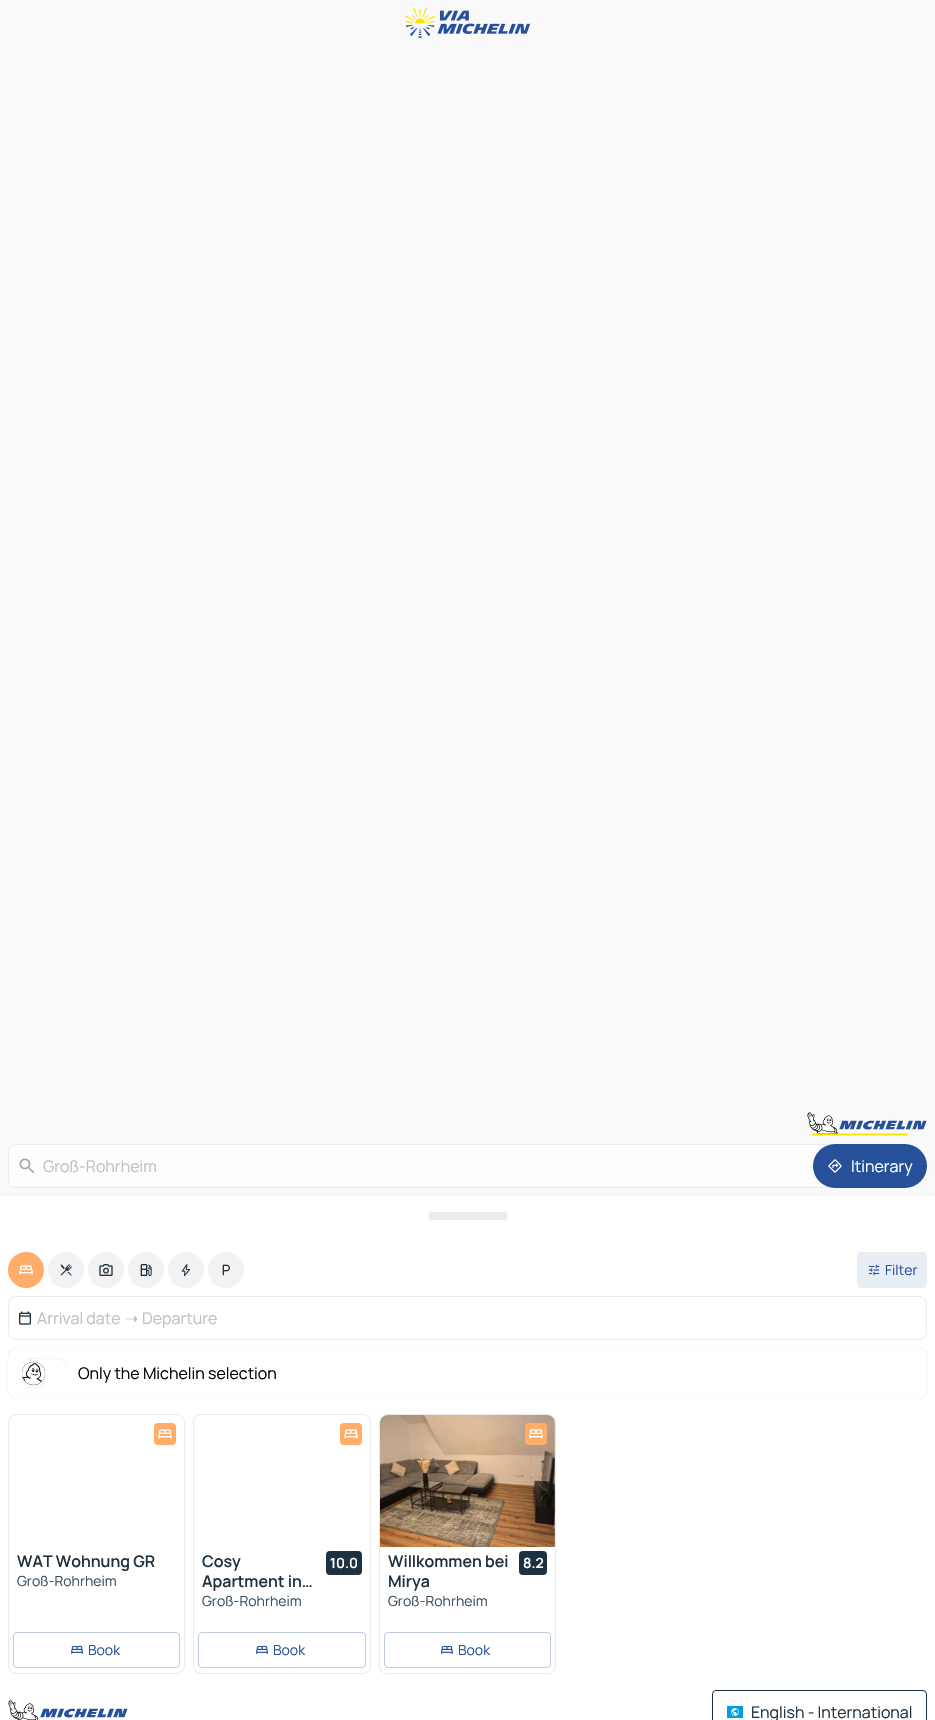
#include "include/core/SkBlurTypes.h"
#include "include/core/SkCanvas.h"
#include "include/core/SkData.h"
#include "include/core/SkFont.h"
#include "include/core/SkFontMgr.h"
#include "include/core/SkImage.h"
#include "include/core/SkMaskFilter.h"
#include "include/core/SkPaint.h"
#include "include/core/SkPathBuilder.h"
#include "include/core/SkTextBlob.h"
#include "include/effects/SkDashPathEffect.h"
#include "include/effects/SkGradientShader.h"
#include "include/utils/SkParsePath.h"

extern sk_sp<SkFontMgr> fontMgr;

static SkFont font(const char* family, int weight, float size, bool italic = false) {
    SkFontStyle style(weight, SkFontStyle::kNormal_Width,
        italic ? SkFontStyle::kItalic_Slant : SkFontStyle::kUpright_Slant);
    SkFont result(fontMgr->matchFamilyStyle(family, style), size);
    result.setSubpixel(true);
    return result;
}

static void drawLabel(SkCanvas* canvas, const char* s, float x, float y, const SkFont& font, SkColor color) {
    SkPaint ink(SkColor4f::FromColor(color));
    ink.setAntiAlias(true);
    canvas->drawString(s, x, y, font, ink);
}

static void fillRect(SkCanvas* canvas, float x, float y, float w, float h, SkColor color) {
    SkPaint ink(SkColor4f::FromColor(color));
    ink.setAntiAlias(true);
    canvas->drawRect(SkRect::MakeXYWH(x, y, w, h), ink);
}

static void fillRRect(SkCanvas* canvas, float x, float y, float w, float h, float radius, SkColor color) {
    SkPaint ink(SkColor4f::FromColor(color));
    ink.setAntiAlias(true);
    canvas->drawRoundRect(SkRect::MakeXYWH(x, y, w, h), radius, radius, ink);
}

static void drawPhoto(SkCanvas* canvas, const char* path, float x, float y, float w, float h) {
    auto image = SkImages::DeferredFromEncodedData(SkData::MakeFromFileName(path));
    canvas->drawImageRect(image, SkRect::MakeXYWH(x, y, w, h), SkSamplingOptions());
}

static SkPath parsePath(const char* data, bool evenOdd = false) {
    SkPath result = *SkParsePath::FromSVGString(data);
    if (evenOdd) result.setFillType(SkPathFillType::kEvenOdd);
    return result;
}

void draw(SkCanvas* canvas) {
    SkPaint paint;
    paint.setAntiAlias(true);
    canvas->clear(0xFFF9F9F9);
    drawPhoto(canvas, "assets/img1.png", 405, 8, 126, 30);
    drawPhoto(canvas, "assets/img2.png", 807, 1112, 120, 24);
    paint.setColor(0xFFFDFDFE);
    canvas->drawRoundRect(SkRect::MakeXYWH(8.5f, 1144.5f, 828, 43), 7.5f, 7.5f, paint);
    paint.setStroke(true);
    paint.setStrokeWidth(1);
    paint.setColor(0xFFE8EAEC);
    canvas->drawRoundRect(SkRect::MakeXYWH(8.5f, 1144.5f, 828, 43), 7.5f, 7.5f, paint);
    drawPhoto(canvas, "assets/img3.png", 19, 1158, 16, 16);
    SkFont font1 = font("Manrope", 200, 16);
    drawLabel(canvas, "Groß-Rohrheim", 43, 1172, font1, 0xFFC0C0C0);
    fillRRect(canvas, 813, 1144, 114, 44, 22, 0xFF27509B);
    drawPhoto(canvas, "assets/img4.png", 828, 1159, 14, 14);
    drawLabel(canvas, "Itinerary", 851, 1172, font1, 0xFFFFFFFF);
    fillRect(canvas, 0, 1196, 935, 524, 0xFFFFFFFF);
    fillRRect(canvas, 428, 1212, 80, 8, 4, 0xFFECECEC);
    paint.setStroke(false);
    paint.setColor(0xFFFFAD69);
    canvas->drawCircle(26, 1270, 18, paint);
    drawPhoto(canvas, "assets/img5.png", 19, 1265, 14, 10);
    paint.setColor(0xFFF2F2F2);
    canvas->drawCircle(66, 1270, 18, paint);
    drawPhoto(canvas, "assets/img6.png", 60, 1264, 12, 12);
    canvas->drawCircle(106, 1270, 18, paint);
    drawPhoto(canvas, "assets/img7.png", 99, 1264, 14, 12);
    canvas->drawCircle(146, 1270, 18, paint);
    drawPhoto(canvas, "assets/img8.png", 140, 1264, 12, 12);
    canvas->drawCircle(186, 1270, 18, paint);
    drawPhoto(canvas, "assets/img9.png", 181, 1264, 9, 12);
    canvas->drawCircle(226, 1270, 18, paint);
    drawPhoto(canvas, "assets/img10.png", 222, 1264, 8, 12);
    fillRRect(canvas, 857, 1252, 70, 36, 4, 0xFFE9EEF5);
    drawPhoto(canvas, "assets/img11.png", 868, 1264, 12, 12);
    SkFont font2 = font("Manrope", 200, 14);
    drawLabel(canvas, "Filter", 885, 1275, font2, 0xFF27509B);
    paint.setStroke(true);
    paint.setColor(0xFFE8EAEC);
    canvas->drawRoundRect(SkRect::MakeXYWH(8.5f, 1296.5f, 918, 43), 7.5f, 7.5f, paint);
    drawPhoto(canvas, "assets/img12.png", 19, 1311, 12, 14);
    drawLabel(canvas, "Arrival date", 37, 1324, font1, 0xFFBBC1C6);
    SkFont font3 = font("DejaVu Sans", 400, 16);
    drawLabel(canvas, "➝", 125, 1324, font3, 0xFFBBC1C6);
    drawLabel(canvas, "Departure", 142, 1324, font1, 0xFFBBC1C6);
    paint.setStroke(false);
    paint.setColor(0x3D0C1A4B);
    paint.setMaskFilter(SkMaskFilter::MakeBlur(kNormal_SkBlurStyle, 0.5f));
    canvas->drawRoundRect(SkRect::MakeXYWH(8, 1348, 919, 50), 8, 8, paint);
    paint.setMaskFilter(nullptr);
    fillRRect(canvas, 8, 1348, 919, 50, 8, 0xFFFFFFFF);
    paint.setColor(0xFFEBEBEB);
    canvas->drawPath(parsePath("M33 1359C41 1359 54 1357 61 1360C66 1362 70 1368 70 1374C70 1366 65 1360 58 1358H30C23 1360 18 1367 18 1374C18 1366 24 1359 33 1359Z"), paint);
    drawPhoto(canvas, "assets/img13.png", 21, 1362, 25, 27);
    drawLabel(canvas, "Only the Michelin selection", 78, 1379, font1, 0xFF000000);
    paint.setStroke(true);
    paint.setColor(0xFFE8EAEC);
    canvas->drawRoundRect(SkRect::MakeXYWH(8.5f, 1414.5f, 176, 259), 7.5f, 7.5f, paint);
    fillRRect(canvas, 154, 1423, 22, 22, 4, 0xFFFFAD69);
    drawPhoto(canvas, "assets/img5.png", 158, 1429, 14, 10);
    SkFont font4 = font("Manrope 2", 200, 16);
    drawLabel(canvas, "WAT Wohnung GR", 17, 1567, font4, 0xFF1D3140);
    drawLabel(canvas, "Groß-Rohrheim", 17, 1586, font2, 0xFF3A4F5F);
    paint.setColor(0xFFBECBE1);
    canvas->drawRoundRect(SkRect::MakeXYWH(13.5f, 1632.5f, 166, 35), 3.5f, 3.5f, paint);
    drawPhoto(canvas, "assets/img14.png", 71, 1645, 12, 9);
    drawLabel(canvas, "Book", 88, 1655, font2, 0xFF27509B);
    paint.setColor(0xFFE8EAEC);
    canvas->drawRoundRect(SkRect::MakeXYWH(193.5f, 1414.5f, 177, 259), 7.5f, 7.5f, paint);
    fillRRect(canvas, 340, 1423, 22, 22, 4, 0xFFFFAD69);
    drawPhoto(canvas, "assets/img5.png", 344, 1429, 14, 10);
    drawLabel(canvas, "Cosy", 202, 1567, font4, 0xFF1D3140);
    drawLabel(canvas, "Apartment in…", 202, 1587, font4, 0xFF1D3140);
    fillRRect(canvas, 326, 1551, 36, 24, 4, 0xFF1D3140);
    SkFont font5 = font("Manrope 2", 200, 14);
    drawLabel(canvas, "10.0", 330, 1568, font5, 0xFFFFFFFF);
    drawLabel(canvas, "Groß-Rohrheim", 202, 1606, font2, 0xFF3A4F5F);
    paint.setColor(0xFFBECBE1);
    canvas->drawRoundRect(SkRect::MakeXYWH(198.5f, 1632.5f, 167, 35), 3.5f, 3.5f, paint);
    drawPhoto(canvas, "assets/img14.png", 256, 1645, 12, 9);
    drawLabel(canvas, "Book", 273, 1655, font2, 0xFF27509B);
    paint.setColor(0xFFE8EAEC);
    canvas->drawRoundRect(SkRect::MakeXYWH(379.5f, 1414.5f, 176, 259), 7.5f, 7.5f, paint);
    drawPhoto(canvas, "assets/img15.png", 380, 1415, 175, 132);
    fillRRect(canvas, 525, 1423, 22, 22, 4, 0xFFFFAD69);
    drawPhoto(canvas, "assets/img5.png", 529, 1429, 14, 10);
    drawLabel(canvas, "Willkommen bei", 388, 1567, font4, 0xFF1D3140);
    drawLabel(canvas, "Mirya", 388, 1587, font4, 0xFF1D3140);
    fillRRect(canvas, 519, 1551, 28, 24, 4, 0xFF1D3140);
    drawLabel(canvas, "8.2", 523, 1568, font5, 0xFFFFFFFF);
    drawLabel(canvas, "Groß-Rohrheim", 388, 1606, font2, 0xFF3A4F5F);
    paint.setColor(0xFFBECBE1);
    canvas->drawRoundRect(SkRect::MakeXYWH(384.5f, 1632.5f, 166, 35), 3.5f, 3.5f, paint);
    drawPhoto(canvas, "assets/img14.png", 441, 1645, 12, 9);
    drawLabel(canvas, "Book", 458, 1655, font2, 0xFF27509B);
    drawPhoto(canvas, "assets/img16.png", 8, 1700, 120, 20);
    paint.setColor(0xFF1D3140);
    canvas->drawRoundRect(SkRect::MakeXYWH(712.5f, 1690.5f, 214, 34), 3.5f, 3.5f, paint);
    drawPhoto(canvas, "assets/img17.png", 727, 1706, 16, 12);
    drawLabel(canvas, "English - International", 751, 1718, font1, 0xFF1D3140);
}
